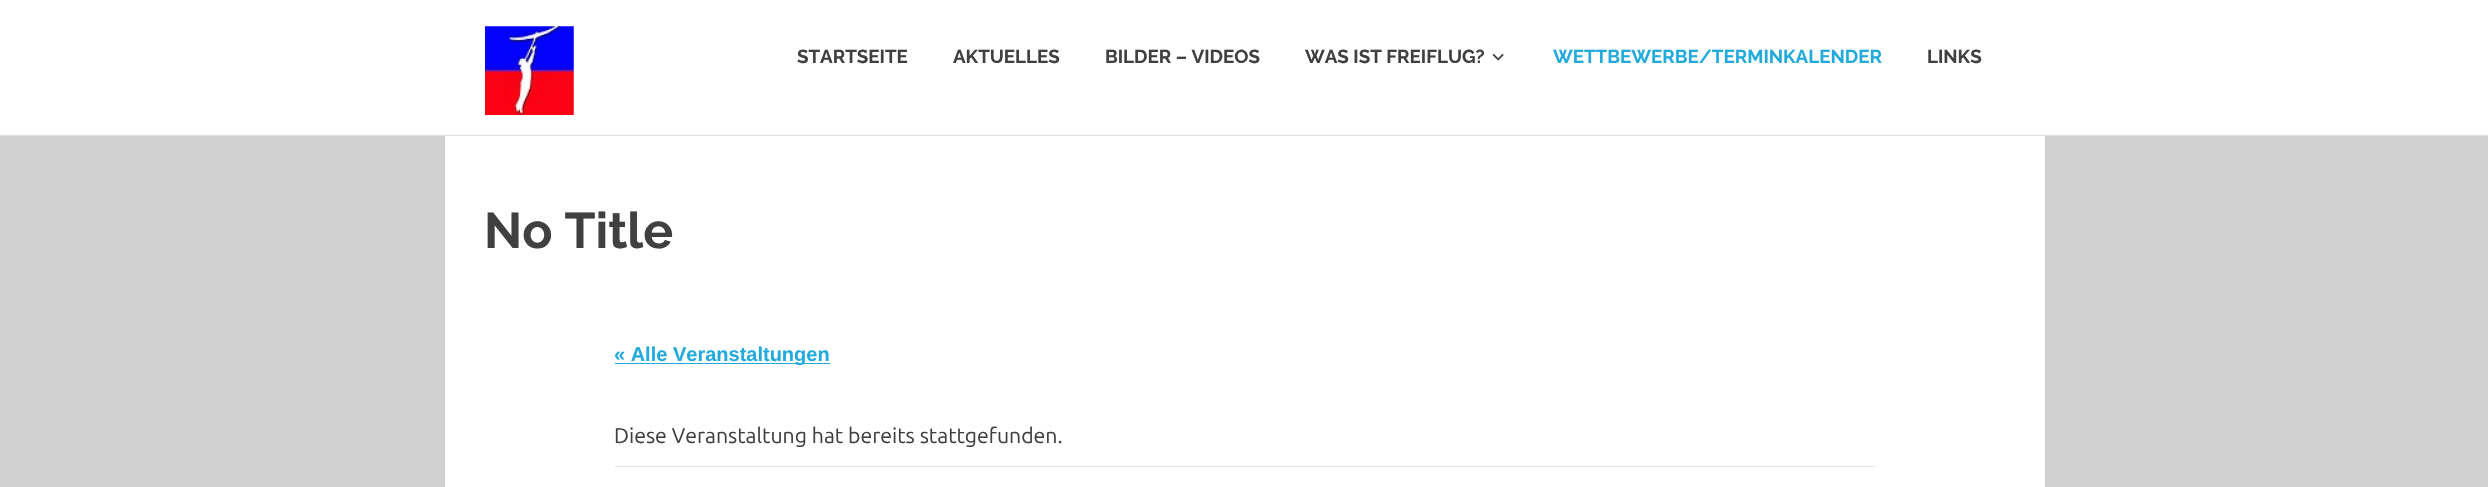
#include "include/core/SkBlurTypes.h"
#include "include/core/SkCanvas.h"
#include "include/core/SkData.h"
#include "include/core/SkFont.h"
#include "include/core/SkFontMgr.h"
#include "include/core/SkImage.h"
#include "include/core/SkMaskFilter.h"
#include "include/core/SkPaint.h"
#include "include/core/SkPathBuilder.h"
#include "include/core/SkTextBlob.h"
#include "include/effects/SkDashPathEffect.h"
#include "include/effects/SkGradientShader.h"
#include "include/utils/SkParsePath.h"

extern sk_sp<SkFontMgr> fontMgr;

static SkFont font(const char* family, int weight, float size, bool italic = false) {
    SkFontStyle style(weight, SkFontStyle::kNormal_Width,
        italic ? SkFontStyle::kItalic_Slant : SkFontStyle::kUpright_Slant);
    SkFont result(fontMgr->matchFamilyStyle(family, style), size);
    result.setSubpixel(true);
    return result;
}

static void drawLabel(SkCanvas* canvas, const char* s, float x, float y, const SkFont& font, SkColor color) {
    SkPaint ink(SkColor4f::FromColor(color));
    ink.setAntiAlias(true);
    canvas->drawString(s, x, y, font, ink);
}

static void fillRect(SkCanvas* canvas, float x, float y, float w, float h, SkColor color) {
    SkPaint ink(SkColor4f::FromColor(color));
    ink.setAntiAlias(true);
    canvas->drawRect(SkRect::MakeXYWH(x, y, w, h), ink);
}

static void drawPhoto(SkCanvas* canvas, const char* path, float x, float y, float w, float h) {
    auto image = SkImages::DeferredFromEncodedData(SkData::MakeFromFileName(path));
    canvas->drawImageRect(image, SkRect::MakeXYWH(x, y, w, h), SkSamplingOptions());
}

void draw(SkCanvas* canvas) {
    SkPaint paint;
    paint.setAntiAlias(true);
    canvas->clear(0xFFD1D1D1);
    fillRect(canvas, 0, 0, 2488, 135, 0xFFFFFFFF);
    fillRect(canvas, 0, 135, 2488, 1, 0xFFE0E0E0);
    drawPhoto(canvas, "assets/img1.png", 485, 26, 89, 89);
    SkFont font1 = font("Raleway", 700, 18.75f);
    drawLabel(canvas, "STARTSEITE", 797, 63, font1, 0xFF404040);
    drawLabel(canvas, "AKTUELLES", 953, 63, font1, 0xFF404040);
    drawLabel(canvas, "BILDER – VIDEOS", 1105, 63, font1, 0xFF404040);
    drawLabel(canvas, "WAS IST FREIFLUG?", 1305, 63, font1, 0xFF404040);
    drawPhoto(canvas, "assets/img2.png", 1492, 53, 12, 8);
    drawLabel(canvas, "WETTBEWERBE/TERMINKALENDER", 1553, 63, font1, 0xFF22AADD);
    drawLabel(canvas, "LINKS", 1927, 63, font1, 0xFF404040);
    fillRect(canvas, 445, 136, 1600, 351, 0xFFFFFFFF);
    SkFont font2 = font("Raleway", 700, 50);
    drawLabel(canvas, "No Title", 484, 248, font2, 0xFF404040);
    fillRect(canvas, 615, 363, 215, 1, 0xFF22AADD);
    SkFont font3 = font("Liberation Sans", 700, 20);
    drawLabel(canvas, "« Alle Veranstaltungen", 614, 361, font3, 0xFF22AADD);
    fillRect(canvas, 615, 466, 1260, 1, 0xFFE4E4E4);
    SkFont font4 = font("Ubuntu", 400, 21.25f);
    drawLabel(canvas, "Diese Veranstaltung hat bereits stattgefunden.", 614, 443, font4, 0xFF404040);
}
